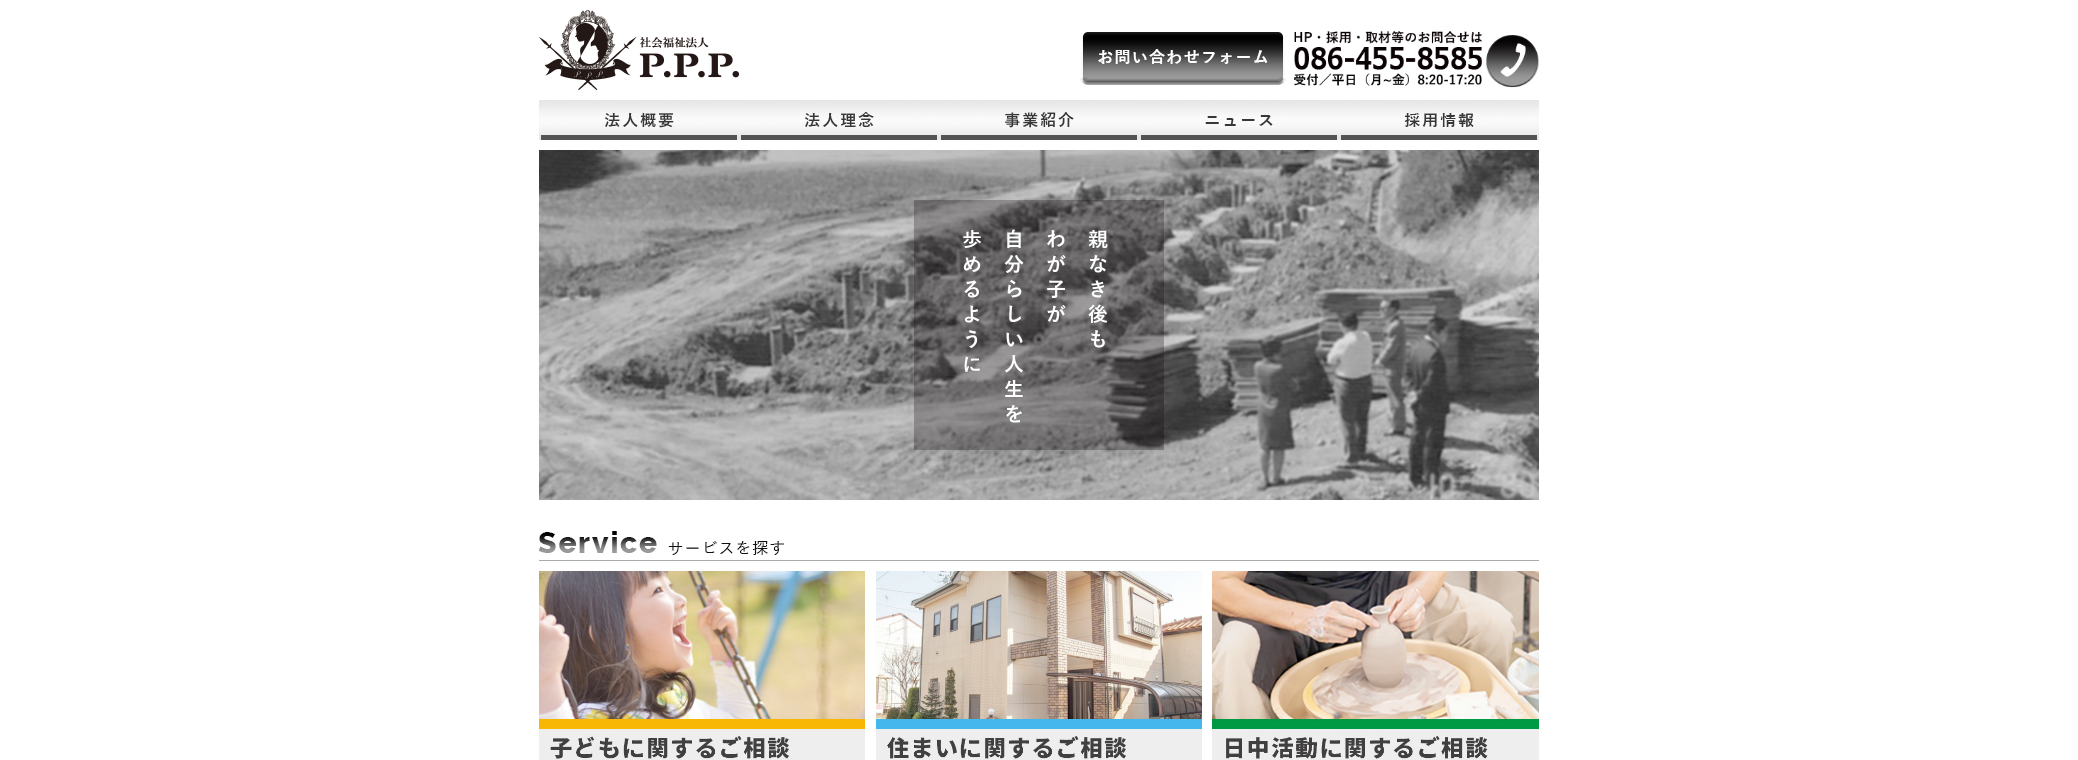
#include "include/core/SkBlurTypes.h"
#include "include/core/SkCanvas.h"
#include "include/core/SkData.h"
#include "include/core/SkFont.h"
#include "include/core/SkFontMgr.h"
#include "include/core/SkImage.h"
#include "include/core/SkMaskFilter.h"
#include "include/core/SkPaint.h"
#include "include/core/SkPathBuilder.h"
#include "include/core/SkTextBlob.h"
#include "include/effects/SkDashPathEffect.h"
#include "include/effects/SkGradientShader.h"
#include "include/utils/SkParsePath.h"

extern sk_sp<SkFontMgr> fontMgr;

static void drawPhoto(SkCanvas* canvas, const char* path, float x, float y, float w, float h) {
    auto image = SkImages::DeferredFromEncodedData(SkData::MakeFromFileName(path));
    canvas->drawImageRect(image, SkRect::MakeXYWH(x, y, w, h), SkSamplingOptions());
}

void draw(SkCanvas* canvas) {
    SkPaint paint;
    paint.setAntiAlias(true);
    canvas->clear(0xFFFFFFFF);
    drawPhoto(canvas, "assets/img1.png", 539, 10, 200, 80);
    drawPhoto(canvas, "assets/img2.png", 1080, 32, 206, 53);
    drawPhoto(canvas, "assets/img3.png", 1294, 31, 245, 57);
    drawPhoto(canvas, "assets/img4.png", 539, 100, 200, 40);
    drawPhoto(canvas, "assets/img5.png", 739, 100, 200, 40);
    drawPhoto(canvas, "assets/img6.png", 939, 100, 200, 40);
    drawPhoto(canvas, "assets/img7.png", 1139, 100, 200, 40);
    drawPhoto(canvas, "assets/img8.png", 1339, 100, 200, 40);
    drawPhoto(canvas, "assets/img9.png", 539, 150, 1000, 350);
    drawPhoto(canvas, "assets/img10.png", 539, 531, 1000, 30);
    drawPhoto(canvas, "assets/img11.png", 539, 571, 326, 189);
    drawPhoto(canvas, "assets/img12.png", 876, 571, 326, 189);
    drawPhoto(canvas, "assets/img13.png", 1212, 571, 327, 189);
}
